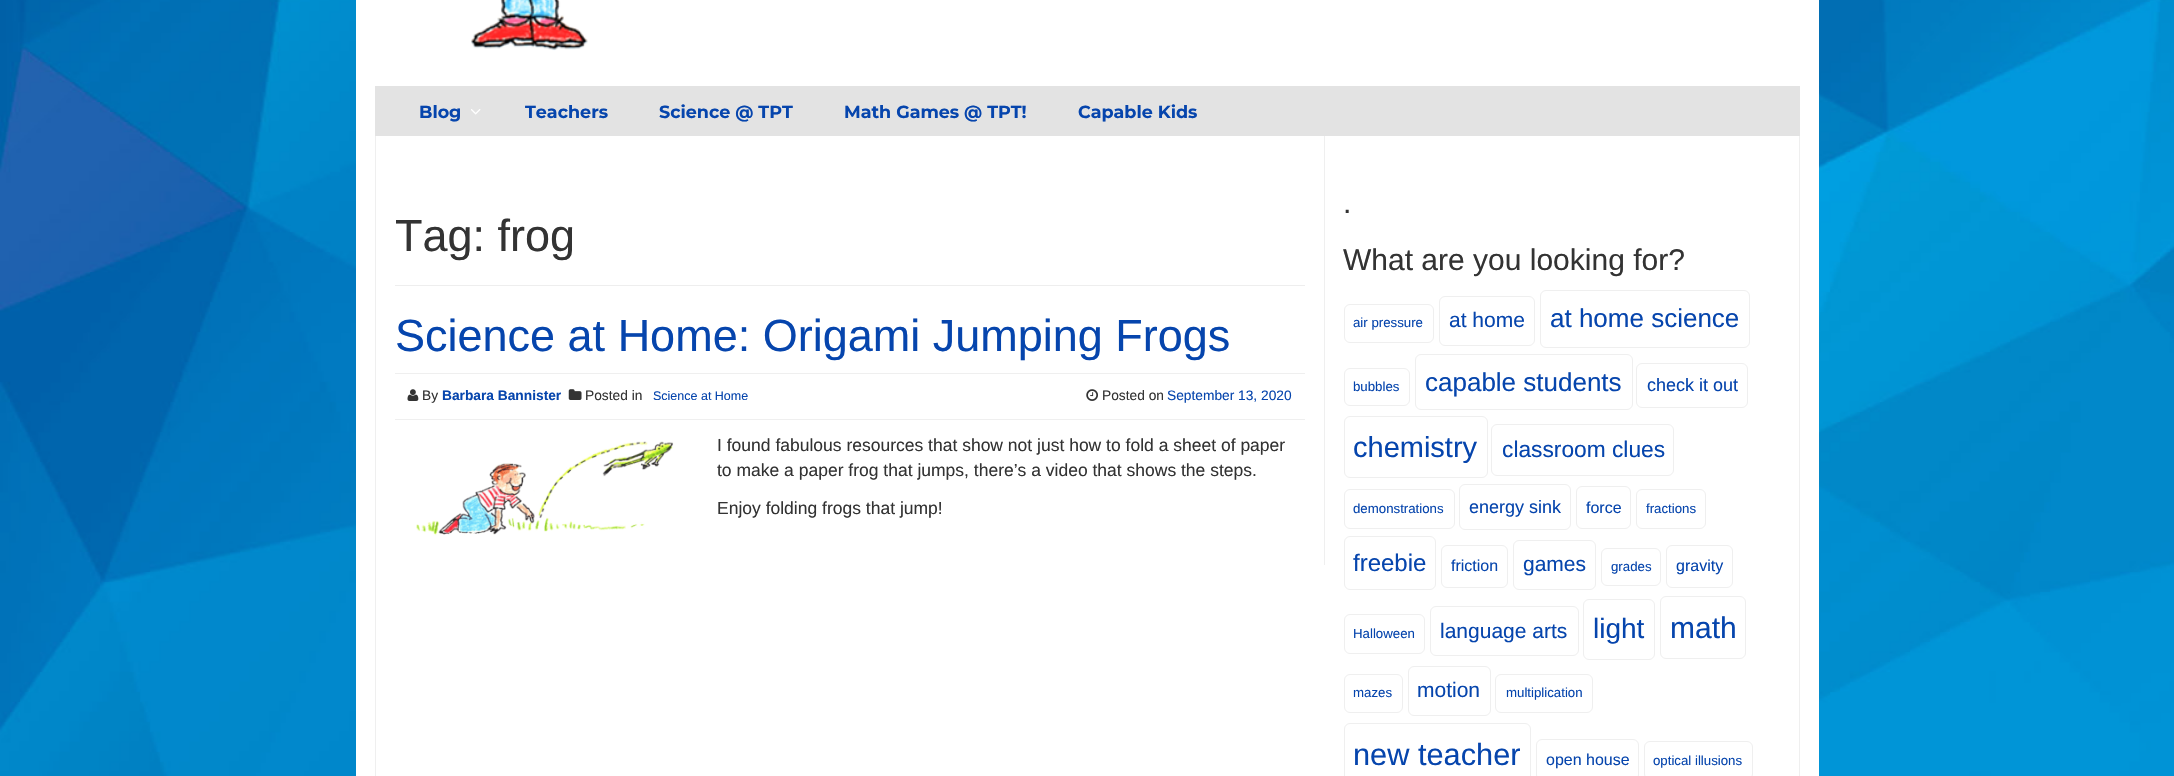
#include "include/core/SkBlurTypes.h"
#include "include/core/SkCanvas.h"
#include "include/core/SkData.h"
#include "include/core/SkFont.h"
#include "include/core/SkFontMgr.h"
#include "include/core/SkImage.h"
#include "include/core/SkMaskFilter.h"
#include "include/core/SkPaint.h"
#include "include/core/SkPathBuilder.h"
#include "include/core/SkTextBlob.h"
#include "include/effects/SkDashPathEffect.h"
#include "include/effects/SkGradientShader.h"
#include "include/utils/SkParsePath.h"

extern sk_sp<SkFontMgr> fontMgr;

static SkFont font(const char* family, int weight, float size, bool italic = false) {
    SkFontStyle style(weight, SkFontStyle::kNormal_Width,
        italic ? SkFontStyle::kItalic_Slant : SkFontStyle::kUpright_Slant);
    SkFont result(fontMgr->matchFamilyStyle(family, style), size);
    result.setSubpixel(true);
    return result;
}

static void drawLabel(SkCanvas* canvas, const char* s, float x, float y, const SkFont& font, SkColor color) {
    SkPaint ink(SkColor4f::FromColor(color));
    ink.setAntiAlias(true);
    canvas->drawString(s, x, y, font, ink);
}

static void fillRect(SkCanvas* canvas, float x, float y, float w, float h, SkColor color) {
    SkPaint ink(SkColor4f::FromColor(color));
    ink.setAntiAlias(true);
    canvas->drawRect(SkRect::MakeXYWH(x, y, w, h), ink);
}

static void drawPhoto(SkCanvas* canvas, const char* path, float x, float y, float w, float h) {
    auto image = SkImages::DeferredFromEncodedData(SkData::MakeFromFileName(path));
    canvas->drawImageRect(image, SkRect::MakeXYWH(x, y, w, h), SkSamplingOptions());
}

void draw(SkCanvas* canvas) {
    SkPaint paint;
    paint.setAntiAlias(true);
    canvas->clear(0xFFFFFFFF);
    drawPhoto(canvas, "assets/img1.png", 0, 0, 2174, 776);
    fillRect(canvas, 356, 0, 1463, 776, 0xFFFFFFFF);
    drawPhoto(canvas, "assets/img2.png", 471, 0, 117, 51);
    fillRect(canvas, 375, 86, 1425, 50, 0xFFE3E3E3);
    SkFont font1 = font("Montserrat", 700, 17.5f);
    drawLabel(canvas, "Blog", 419, 118, font1, 0xFF0645AD);
    drawPhoto(canvas, "assets/img3.png", 471, 109, 10, 6);
    drawLabel(canvas, "Teachers", 525, 118, font1, 0xFF0645AD);
    drawLabel(canvas, "Science @ TPT", 659, 118, font1, 0xFF0645AD);
    drawLabel(canvas, "Math Games @ TPT!", 844, 118, font1, 0xFF0645AD);
    drawLabel(canvas, "Capable Kids", 1078, 118, font1, 0xFF0645AD);
    fillRect(canvas, 1799, 136, 1, 640, 0xFFEFEFEF);
    fillRect(canvas, 375, 136, 1, 640, 0xFFEFEFEF);
    fillRect(canvas, 1324, 136, 1, 429, 0xFFEFEFEF);
    fillRect(canvas, 395, 285, 910, 1, 0xFFEEEEEE);
    SkFont font2 = font("Liberation Sans", 400, 45);
    drawLabel(canvas, "Tag: frog", 395, 251, font2, 0xFF333333);
    drawLabel(canvas, "Science at Home: Origami Jumping Frogs", 395, 351, font2, 0xFF0645AD);
    fillRect(canvas, 395, 373, 910, 1, 0xFFEFEFEF);
    fillRect(canvas, 395, 419, 910, 1, 0xFFEFEFEF);
    drawPhoto(canvas, "assets/img4.png", 407, 389, 12, 12);
    SkFont font3 = font("Liberation Sans", 400, 13.75f);
    drawLabel(canvas, "By", 422, 400, font3, 0xFF333333);
    SkFont font4 = font("Liberation Sans", 700, 13.75f);
    drawLabel(canvas, "Barbara Bannister", 442, 400, font4, 0xFF0645AD);
    drawPhoto(canvas, "assets/img5.png", 568, 389, 14, 11);
    drawLabel(canvas, "Posted in", 585, 400, font3, 0xFF333333);
    SkFont font5 = font("Liberation Sans", 400, 12.5f);
    drawLabel(canvas, "Science at Home", 653, 400, font5, 0xFF0645AD);
    drawPhoto(canvas, "assets/img6.png", 1086, 389, 12, 12);
    drawLabel(canvas, "Posted on", 1102, 400, font3, 0xFF333333);
    drawLabel(canvas, "September 13, 2020", 1167, 400, font3, 0xFF0645AD);
    drawPhoto(canvas, "assets/img7.png", 416, 441, 258, 95);
    SkFont font6 = font("Liberation Sans", 400, 17.5f);
    drawLabel(canvas, "I found fabulous resources that show not just how to fold a sheet of paper", 717, 451, font6, 0xFF333333);
    drawLabel(canvas, "to make a paper frog that jumps, there’s a video that shows the steps.", 717, 476, font6, 0xFF333333);
    drawLabel(canvas, "Enjoy folding frogs that jump!", 717, 514, font6, 0xFF333333);
    SkFont font7 = font("Liberation Sans", 400, 30);
    drawLabel(canvas, ".", 1343, 213, font7, 0xFF333333);
    drawLabel(canvas, "What are you looking for?", 1343, 270, font7, 0xFF333333);
    paint.setStroke(true);
    paint.setStrokeWidth(1);
    paint.setColor(0xFFEFEFEF);
    canvas->drawRoundRect(SkRect::MakeXYWH(1344.5f, 304.5f, 89, 38), 5.5f, 5.5f, paint);
    SkFont font8 = font("Liberation Sans", 400, 13.25f);
    drawLabel(canvas, "air pressure", 1353, 327, font8, 0xFF0645AD);
    canvas->drawRoundRect(SkRect::MakeXYWH(1439.5f, 296.5f, 95, 49), 5.5f, 5.5f, paint);
    SkFont font9 = font("Liberation Sans", 400, 21);
    drawLabel(canvas, "at home", 1449, 327, font9, 0xFF0645AD);
    canvas->drawRoundRect(SkRect::MakeXYWH(1540.5f, 290.5f, 209, 57), 5.5f, 5.5f, paint);
    SkFont font10 = font("Liberation Sans", 400, 26);
    drawLabel(canvas, "at home science", 1550, 327, font10, 0xFF0645AD);
    canvas->drawRoundRect(SkRect::MakeXYWH(1344.5f, 368.5f, 65, 37), 5.5f, 5.5f, paint);
    drawLabel(canvas, "bubbles", 1353, 391, font8, 0xFF0645AD);
    canvas->drawRoundRect(SkRect::MakeXYWH(1415.5f, 354.5f, 217, 55), 5.5f, 5.5f, paint);
    drawLabel(canvas, "capable students", 1425, 391, font10, 0xFF0645AD);
    canvas->drawRoundRect(SkRect::MakeXYWH(1636.5f, 363.5f, 111, 44), 5.5f, 5.5f, paint);
    SkFont font11 = font("Liberation Sans", 400, 18);
    drawLabel(canvas, "check it out", 1647, 391, font11, 0xFF0645AD);
    canvas->drawRoundRect(SkRect::MakeXYWH(1344.5f, 416.5f, 143, 61), 5.5f, 5.5f, paint);
    SkFont font12 = font("Liberation Sans", 400, 29);
    drawLabel(canvas, "chemistry", 1353, 457, font12, 0xFF0645AD);
    canvas->drawRoundRect(SkRect::MakeXYWH(1491.5f, 424.5f, 182, 51), 5.5f, 5.5f, paint);
    SkFont font13 = font("Liberation Sans", 400, 22.75f);
    drawLabel(canvas, "classroom clues", 1502, 457, font13, 0xFF0645AD);
    canvas->drawRoundRect(SkRect::MakeXYWH(1344.5f, 489.5f, 110, 39), 5.5f, 5.5f, paint);
    drawLabel(canvas, "demonstrations", 1353, 513, font8, 0xFF0645AD);
    canvas->drawRoundRect(SkRect::MakeXYWH(1459.5f, 484.5f, 111, 45), 5.5f, 5.5f, paint);
    drawLabel(canvas, "energy sink", 1469, 513, font11, 0xFF0645AD);
    canvas->drawRoundRect(SkRect::MakeXYWH(1576.5f, 486.5f, 54, 42), 5.5f, 5.5f, paint);
    SkFont font14 = font("Liberation Sans", 400, 16);
    drawLabel(canvas, "force", 1586, 513, font14, 0xFF0645AD);
    canvas->drawRoundRect(SkRect::MakeXYWH(1636.5f, 489.5f, 69, 39), 5.5f, 5.5f, paint);
    drawLabel(canvas, "fractions", 1646, 513, font8, 0xFF0645AD);
    canvas->drawRoundRect(SkRect::MakeXYWH(1344.5f, 536.5f, 91, 53), 5.5f, 5.5f, paint);
    SkFont font15 = font("Liberation Sans", 400, 24);
    drawLabel(canvas, "freebie", 1353, 571, font15, 0xFF0645AD);
    canvas->drawRoundRect(SkRect::MakeXYWH(1441.5f, 545.5f, 66, 42), 5.5f, 5.5f, paint);
    drawLabel(canvas, "friction", 1451, 571, font14, 0xFF0645AD);
    canvas->drawRoundRect(SkRect::MakeXYWH(1513.5f, 540.5f, 82, 49), 5.5f, 5.5f, paint);
    drawLabel(canvas, "games", 1523, 571, font9, 0xFF0645AD);
    canvas->drawRoundRect(SkRect::MakeXYWH(1601.5f, 548.5f, 59, 37), 5.5f, 5.5f, paint);
    drawLabel(canvas, "grades", 1611, 571, font8, 0xFF0645AD);
    canvas->drawRoundRect(SkRect::MakeXYWH(1666.5f, 545.5f, 66, 42), 5.5f, 5.5f, paint);
    drawLabel(canvas, "gravity", 1676, 571, font14, 0xFF0645AD);
    canvas->drawRoundRect(SkRect::MakeXYWH(1344.5f, 614.5f, 80, 39), 5.5f, 5.5f, paint);
    drawLabel(canvas, "Halloween", 1353, 638, font8, 0xFF0645AD);
    canvas->drawRoundRect(SkRect::MakeXYWH(1430.5f, 606.5f, 148, 49), 5.5f, 5.5f, paint);
    drawLabel(canvas, "language arts", 1440, 638, font9, 0xFF0645AD);
    canvas->drawRoundRect(SkRect::MakeXYWH(1583.5f, 599.5f, 71, 60), 5.5f, 5.5f, paint);
    SkFont font16 = font("Liberation Sans", 400, 28);
    drawLabel(canvas, "light", 1593, 638, font16, 0xFF0645AD);
    canvas->drawRoundRect(SkRect::MakeXYWH(1660.5f, 596.5f, 85, 62), 5.5f, 5.5f, paint);
    drawLabel(canvas, "math", 1670, 638, font7, 0xFF0645AD);
    canvas->drawRoundRect(SkRect::MakeXYWH(1344.5f, 674.5f, 58, 38), 5.5f, 5.5f, paint);
    drawLabel(canvas, "mazes", 1353, 697, font8, 0xFF0645AD);
    canvas->drawRoundRect(SkRect::MakeXYWH(1408.5f, 666.5f, 82, 49), 5.5f, 5.5f, paint);
    drawLabel(canvas, "motion", 1417, 697, font9, 0xFF0645AD);
    canvas->drawRoundRect(SkRect::MakeXYWH(1495.5f, 674.5f, 97, 38), 5.5f, 5.5f, paint);
    drawLabel(canvas, "multiplication", 1506, 697, font8, 0xFF0645AD);
    canvas->drawRoundRect(SkRect::MakeXYWH(1344.5f, 723.5f, 186, 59), 5.5f, 5.5f, paint);
    SkFont font17 = font("Liberation Sans", 400, 30.75f);
    drawLabel(canvas, "new teacher", 1353, 765, font17, 0xFF0645AD);
    canvas->drawRoundRect(SkRect::MakeXYWH(1536.5f, 739.5f, 102, 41), 5.5f, 5.5f, paint);
    drawLabel(canvas, "open house", 1546, 765, font14, 0xFF0645AD);
    canvas->drawRoundRect(SkRect::MakeXYWH(1644.5f, 741.5f, 108, 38), 5.5f, 5.5f, paint);
    drawLabel(canvas, "optical illusions", 1653, 765, font8, 0xFF0645AD);
}
